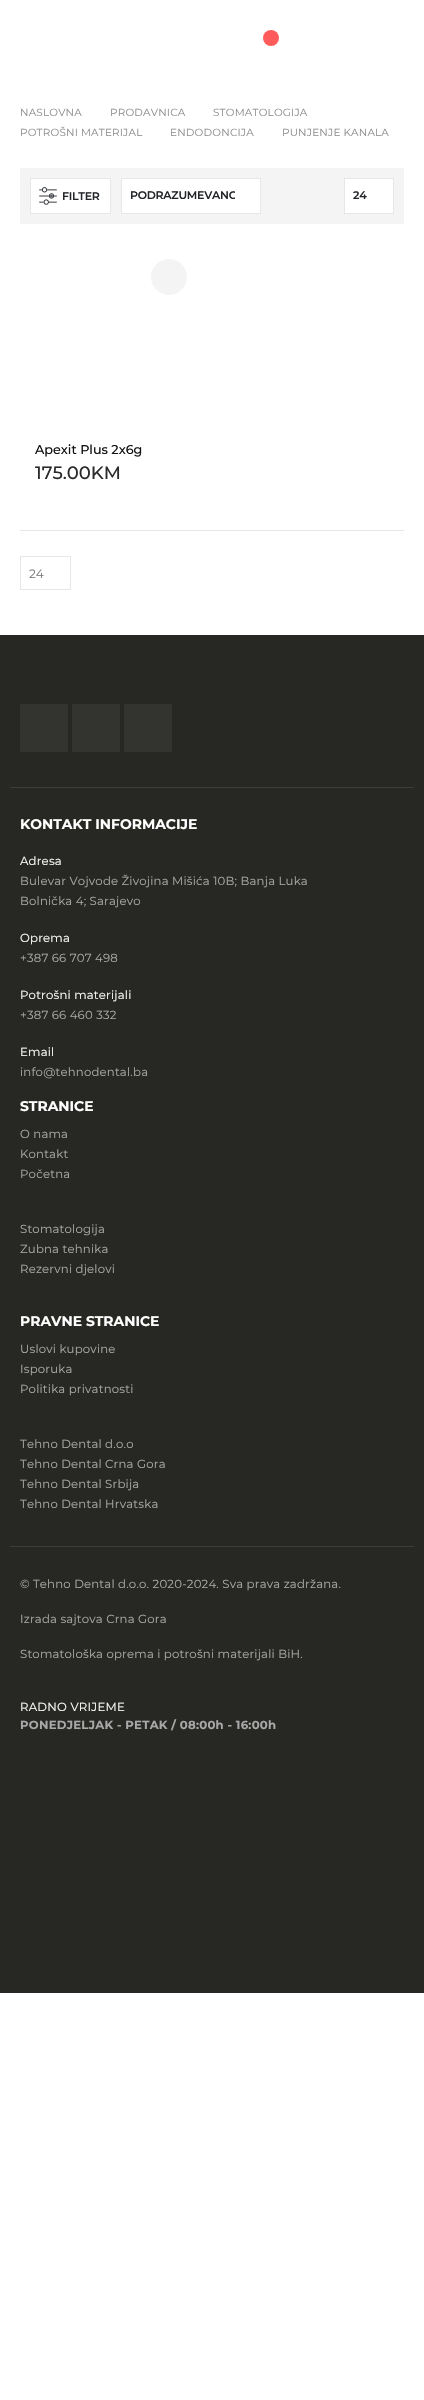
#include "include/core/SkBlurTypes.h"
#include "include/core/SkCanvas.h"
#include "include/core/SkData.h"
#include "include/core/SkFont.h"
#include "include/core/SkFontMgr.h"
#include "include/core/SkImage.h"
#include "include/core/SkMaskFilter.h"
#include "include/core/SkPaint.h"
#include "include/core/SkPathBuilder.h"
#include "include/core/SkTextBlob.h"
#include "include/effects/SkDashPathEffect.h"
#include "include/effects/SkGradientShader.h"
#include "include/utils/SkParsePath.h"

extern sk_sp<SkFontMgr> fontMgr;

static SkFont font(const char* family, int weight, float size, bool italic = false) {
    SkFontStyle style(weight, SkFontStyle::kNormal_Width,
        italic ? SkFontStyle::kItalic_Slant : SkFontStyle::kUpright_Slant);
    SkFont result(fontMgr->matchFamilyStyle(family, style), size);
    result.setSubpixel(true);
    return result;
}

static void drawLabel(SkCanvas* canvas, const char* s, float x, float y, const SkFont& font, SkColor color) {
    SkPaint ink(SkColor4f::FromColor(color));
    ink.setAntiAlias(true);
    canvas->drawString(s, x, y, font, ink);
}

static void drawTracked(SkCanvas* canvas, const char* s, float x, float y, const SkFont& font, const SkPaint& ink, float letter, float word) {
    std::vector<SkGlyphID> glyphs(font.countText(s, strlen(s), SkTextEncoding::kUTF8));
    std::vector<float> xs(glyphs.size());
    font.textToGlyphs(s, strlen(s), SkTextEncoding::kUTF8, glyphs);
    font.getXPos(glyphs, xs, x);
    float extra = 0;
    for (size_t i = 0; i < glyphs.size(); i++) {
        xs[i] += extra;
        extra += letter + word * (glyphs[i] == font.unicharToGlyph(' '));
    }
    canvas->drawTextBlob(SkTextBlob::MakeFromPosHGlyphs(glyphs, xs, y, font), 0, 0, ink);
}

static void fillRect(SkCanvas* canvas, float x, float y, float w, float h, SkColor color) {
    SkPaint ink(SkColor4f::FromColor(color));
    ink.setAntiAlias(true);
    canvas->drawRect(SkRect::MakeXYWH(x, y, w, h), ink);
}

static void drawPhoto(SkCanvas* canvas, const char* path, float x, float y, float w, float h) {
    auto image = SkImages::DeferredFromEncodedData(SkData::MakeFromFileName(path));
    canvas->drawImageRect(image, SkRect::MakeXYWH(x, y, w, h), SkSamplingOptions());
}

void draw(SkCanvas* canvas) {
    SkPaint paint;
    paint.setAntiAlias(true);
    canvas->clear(0xFFFFFFFF);
    paint.setColor(0xFFFF5B5B);
    canvas->drawCircle(271, 38, 8, paint);
    SkFont font1 = font("Montserrat", 400, 10.4f);
    paint.setColor(0xFF8E8E8E);
    drawTracked(canvas, "NASLOVNA", 20, 116, font1, paint, 0.2f, 0);
    drawTracked(canvas, "PRODAVNICA", 110, 116, font1, paint, 0.2f, 0);
    drawTracked(canvas, "STOMATOLOGIJA", 213, 116, font1, paint, 0.2f, 0);
    drawTracked(canvas, "POTROŠNI MATERIJAL", 20, 136, font1, paint, 0.2f, 0);
    drawTracked(canvas, "ENDODONCIJA", 170, 136, font1, paint, 0.2f, 0);
    drawTracked(canvas, "PUNJENJE KANALA", 282, 136, font1, paint, 0.2f, 0);
    fillRect(canvas, 20, 168, 384, 56, 0xFFF4F4F4);
    paint.setColor(0xFFFFFFFF);
    canvas->drawRect(SkRect::MakeXYWH(30.5f, 178.5f, 80, 35), paint);
    paint.setStroke(true);
    paint.setStrokeWidth(1);
    paint.setColor(0xFFE7E7E7);
    canvas->drawRect(SkRect::MakeXYWH(30.5f, 178.5f, 80, 35), paint);
    drawPhoto(canvas, "assets/img1.png", 39, 187, 18, 18);
    SkFont font2 = font("Montserrat", 600, 11);
    paint.setStroke(false);
    paint.setColor(0xFF222529);
    drawTracked(canvas, "FILTER", 62, 200, font2, paint, -0.25f, 0);
    paint.setColor(0xFFFFFFFF);
    canvas->drawRect(SkRect::MakeXYWH(121.5f, 178.5f, 139, 35), paint);
    paint.setStroke(true);
    paint.setColor(0xFFE7E7E7);
    canvas->drawRect(SkRect::MakeXYWH(121.5f, 178.5f, 139, 35), paint);
    canvas->save();
    canvas->clipRect(SkRect::MakeXYWH(130, 188, 105, 16));
    paint.setStroke(false);
    paint.setColor(0xFF222529);
    drawTracked(canvas, "PODRAZUMEVANO", 130, 199, font2, paint, -0.25f, 0);
    canvas->restore();
    paint.setColor(0xFFFFFFFF);
    canvas->drawRect(SkRect::MakeXYWH(344.5f, 178.5f, 49, 35), paint);
    paint.setStroke(true);
    paint.setColor(0xFFE7E7E7);
    canvas->drawRect(SkRect::MakeXYWH(344.5f, 178.5f, 49, 35), paint);
    paint.setStroke(false);
    paint.setColor(0xFF222529);
    drawTracked(canvas, "24", 353, 199, font2, paint, -0.25f, 0);
    paint.setColor(0xFFF4F4F4);
    canvas->drawCircle(169, 277, 17.5f, paint);
    paint.setStroke(true);
    canvas->drawCircle(169, 277, 17.5f, paint);
    SkFont font3 = font("Montserrat", 500, 12.75f);
    drawLabel(canvas, "Apexit Plus 2x6g", 35, 454, font3, 0xFF121214);
    SkFont font4 = font("Montserrat", 500, 18);
    drawLabel(canvas, "175.00KM", 35, 479, font4, 0xFF2B2B2D);
    fillRect(canvas, 20, 530, 384, 1, 0xFFE7E7E7);
    paint.setColor(0xFFE7E7E7);
    canvas->drawRect(SkRect::MakeXYWH(20.5f, 556.5f, 50, 33), paint);
    SkFont font5 = font("Montserrat", 400, 12);
    drawLabel(canvas, "24", 29, 578, font5, 0xFF777777);
    fillRect(canvas, 0, 635, 424, 1358, 0xFF272723);
    fillRect(canvas, 10, 787, 404, 1, 0xFF3D3D38);
    fillRect(canvas, 20, 704, 48, 48, 0xFF33332F);
    fillRect(canvas, 72, 704, 48, 48, 0xFF33332F);
    fillRect(canvas, 124, 704, 48, 48, 0xFF33332F);
    SkFont font6 = font("Montserrat", 700, 13.9f);
    drawLabel(canvas, "KONTAKT INFORMACIJE", 20, 829, font6, 0xFFFFFFFF);
    SkFont font7 = font("Montserrat", 400, 11.7f);
    paint.setStroke(false);
    paint.setColor(0xFFFFFFFF);
    drawTracked(canvas, "Adresa", 20, 865, font7, paint, 0.2f, 0);
    paint.setColor(0xFFA8A8A8);
    drawTracked(canvas, "Bulevar Vojvode Živojina Mišića 10B; Banja Luka", 20, 885, font7, paint, 0.2f, 0);
    drawTracked(canvas, "Bolnička 4; Sarajevo", 20, 905, font7, paint, 0.2f, 0);
    paint.setColor(0xFFFFFFFF);
    drawTracked(canvas, "Oprema", 20, 942, font7, paint, 0.2f, 0);
    paint.setColor(0xFFA8A8A8);
    drawTracked(canvas, "+387 66 707 498", 20, 962, font7, paint, 0.2f, 0);
    paint.setColor(0xFFFFFFFF);
    drawTracked(canvas, "Potrošni materijali", 20, 999, font7, paint, 0.2f, 0);
    paint.setColor(0xFFA8A8A8);
    drawTracked(canvas, "+387 66 460 332", 20, 1019, font7, paint, 0.2f, 0);
    paint.setColor(0xFFFFFFFF);
    drawTracked(canvas, "Email", 20, 1056, font7, paint, 0.2f, 0);
    paint.setColor(0xFFA8A8A8);
    drawTracked(canvas, "info@tehnodental.ba", 20, 1076, font7, paint, 0.2f, 0);
    drawLabel(canvas, "STRANICE", 20, 1111, font6, 0xFFFFFFFF);
    drawTracked(canvas, "O nama", 20, 1138, font7, paint, 0.2f, 0);
    drawTracked(canvas, "Kontakt", 20, 1158, font7, paint, 0.2f, 0);
    drawTracked(canvas, "Početna", 20, 1178, font7, paint, 0.2f, 0);
    drawTracked(canvas, "Stomatologija", 20, 1233, font7, paint, 0.2f, 0);
    drawTracked(canvas, "Zubna tehnika", 20, 1253, font7, paint, 0.2f, 0);
    drawTracked(canvas, "Rezervni djelovi", 20, 1273, font7, paint, 0.2f, 0);
    drawLabel(canvas, "PRAVNE STRANICE", 20, 1326, font6, 0xFFFFFFFF);
    drawTracked(canvas, "Uslovi kupovine", 20, 1353, font7, paint, 0.2f, 0);
    drawTracked(canvas, "Isporuka", 20, 1373, font7, paint, 0.2f, 0);
    drawTracked(canvas, "Politika privatnosti", 20, 1393, font7, paint, 0.2f, 0);
    drawTracked(canvas, "Tehno Dental d.o.o", 20, 1448, font7, paint, 0.2f, 0);
    drawTracked(canvas, "Tehno Dental Crna Gora", 20, 1468, font7, paint, 0.2f, 0);
    drawTracked(canvas, "Tehno Dental Srbija", 20, 1488, font7, paint, 0.2f, 0);
    drawTracked(canvas, "Tehno Dental Hrvatska", 20, 1508, font7, paint, 0.2f, 0);
    fillRect(canvas, 10, 1546, 404, 1, 0xFF3D3D38);
    drawTracked(canvas, "© Tehno Dental d.o.o. 2020-2024. Sva prava zadržana.", 20, 1588, font7, paint, 0.2f, 0);
    drawTracked(canvas, "Izrada sajtova Crna Gora", 20, 1623, font7, paint, 0.2f, 0);
    drawTracked(canvas, "Stomatološka oprema i potrošni materijali BiH.", 20, 1658, font7, paint, 0.2f, 0);
    paint.setColor(0xFFFFFFFF);
    drawTracked(canvas, "RADNO VRIJEME", 20, 1711, font7, paint, 0.25f, 0);
    SkFont font8 = font("Montserrat", 700, 11.7f);
    paint.setColor(0xFFA8A8A8);
    drawTracked(canvas, "PONEDJELJAK - PETAK / 08:00h - 16:00h", 20, 1729, font8, paint, 0.25f, 0);
}
